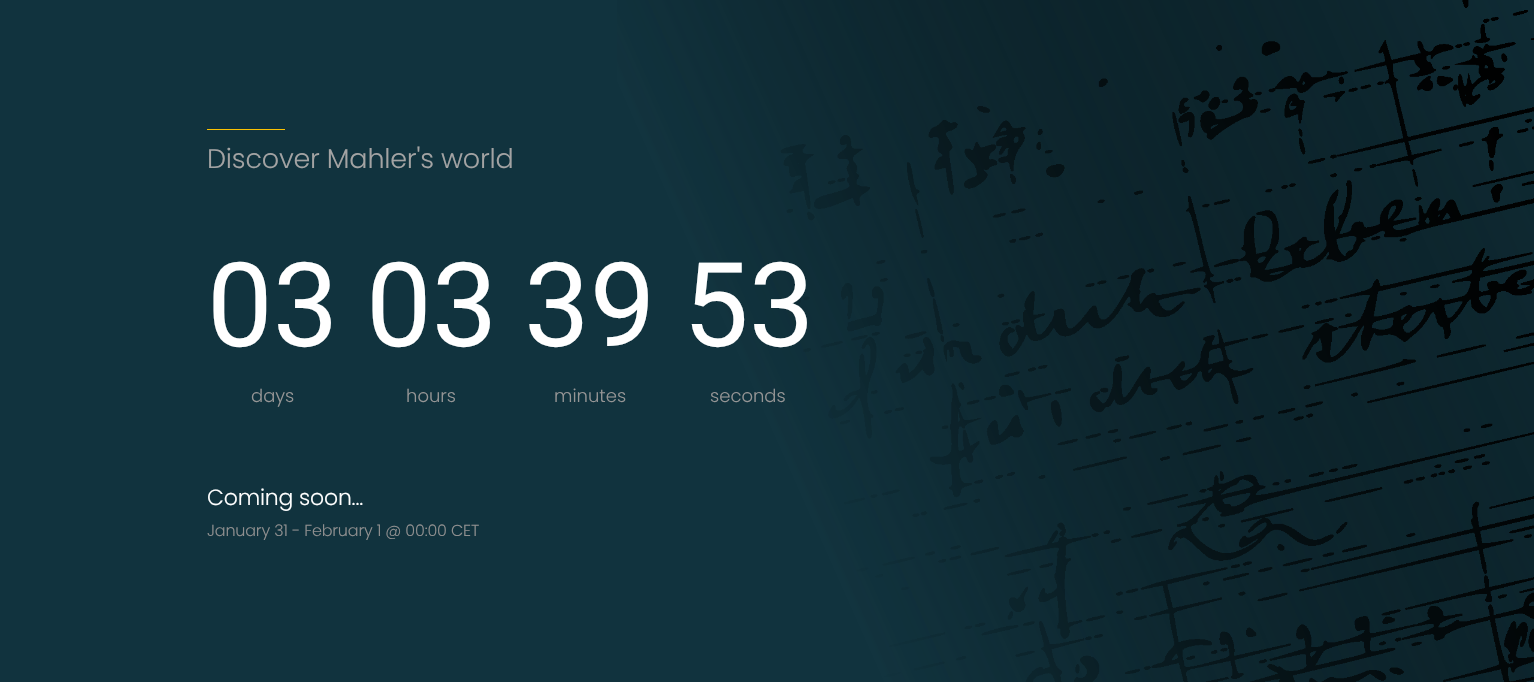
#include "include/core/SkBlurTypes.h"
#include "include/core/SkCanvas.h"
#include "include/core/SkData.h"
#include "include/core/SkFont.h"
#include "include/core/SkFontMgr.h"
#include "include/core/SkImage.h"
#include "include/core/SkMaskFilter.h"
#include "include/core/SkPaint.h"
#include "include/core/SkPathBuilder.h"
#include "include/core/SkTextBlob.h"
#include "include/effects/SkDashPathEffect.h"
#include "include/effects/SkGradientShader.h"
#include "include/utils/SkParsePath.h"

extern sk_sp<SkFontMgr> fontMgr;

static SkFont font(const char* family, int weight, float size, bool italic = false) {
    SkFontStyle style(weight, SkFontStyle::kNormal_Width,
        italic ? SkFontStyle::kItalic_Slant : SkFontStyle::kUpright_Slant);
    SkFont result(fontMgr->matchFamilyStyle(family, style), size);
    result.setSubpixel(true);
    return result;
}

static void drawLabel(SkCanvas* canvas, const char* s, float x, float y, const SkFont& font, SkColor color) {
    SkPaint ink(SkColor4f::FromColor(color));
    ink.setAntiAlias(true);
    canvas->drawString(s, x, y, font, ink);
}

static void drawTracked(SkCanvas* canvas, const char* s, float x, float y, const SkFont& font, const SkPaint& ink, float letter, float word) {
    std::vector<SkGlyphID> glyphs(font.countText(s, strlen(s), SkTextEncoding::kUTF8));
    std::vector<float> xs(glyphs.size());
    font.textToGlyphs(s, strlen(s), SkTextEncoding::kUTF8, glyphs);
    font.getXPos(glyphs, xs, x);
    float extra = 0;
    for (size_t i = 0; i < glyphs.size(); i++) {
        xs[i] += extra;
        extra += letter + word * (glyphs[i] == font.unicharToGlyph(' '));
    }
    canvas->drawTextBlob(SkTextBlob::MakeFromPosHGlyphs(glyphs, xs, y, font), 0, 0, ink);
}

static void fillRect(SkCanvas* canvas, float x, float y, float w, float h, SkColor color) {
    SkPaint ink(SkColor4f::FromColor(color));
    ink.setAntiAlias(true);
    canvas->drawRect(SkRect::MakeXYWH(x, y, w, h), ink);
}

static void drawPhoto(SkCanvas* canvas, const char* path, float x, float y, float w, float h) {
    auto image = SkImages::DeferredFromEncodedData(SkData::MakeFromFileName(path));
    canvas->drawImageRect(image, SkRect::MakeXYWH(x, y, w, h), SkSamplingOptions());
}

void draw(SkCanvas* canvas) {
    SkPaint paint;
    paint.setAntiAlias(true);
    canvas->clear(0xFF11333E);
    drawPhoto(canvas, "assets/img1.png", 780, 0, 754, 682);
    fillRect(canvas, 207, 129, 78, 1, 0xFFFBC203);
    SkFont font1 = font("Poppins", 300, 27);
    paint.setColor(0xFFA3A3A3);
    drawTracked(canvas, "Discover Mahler's world", 207, 168, font1, paint, -0.2f, 0);
    SkFont font2 = font("Roboto", 400, 117);
    drawLabel(canvas, "03", 207, 346, font2, 0xFFFFFFFF);
    SkFont font3 = font("Poppins", 300, 18);
    drawLabel(canvas, "days", 251, 402, font3, 0xFF959595);
    drawLabel(canvas, "03", 366, 346, font2, 0xFFFFFFFF);
    drawLabel(canvas, "hours", 406, 402, font3, 0xFF959595);
    {
        const SkColor colors[] = {0x29000000, 0xFF11333E};
        const float stops[] = {0, 0.52f};
        const SkPoint ends[] = {{1534, -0.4f}, {0.2f, 682}};
        paint.setShader(SkGradientShader::MakeLinear(ends, colors, stops, 2, SkTileMode::kClamp));
        paint.setAlpha(255);
    }
    canvas->drawRect(SkRect::MakeXYWH(617, 0, 917, 682), paint);
    drawLabel(canvas, "39", 524, 346, font2, 0xFFFFFFFF);
    drawLabel(canvas, "minutes", 554, 402, font3, 0xFF959595);
    drawLabel(canvas, "53", 683, 346, font2, 0xFFFFFFFF);
    drawLabel(canvas, "seconds", 710, 402, font3, 0xFF959595);
    SkFont font4 = font("Poppins", 300, 22);
    paint.setShader(nullptr);
    paint.setColor(0xFFFFFFFF);
    drawTracked(canvas, "Coming soon...", 207, 505, font4, paint, -0.2f, 0);
    SkFont font5 = font("Poppins", 300, 16);
    paint.setColor(0xFF8F8F8F);
    drawTracked(canvas, "January 31 - February 1 @ 00:00 CET", 207, 536, font5, paint, -0.2f, 0);
}
